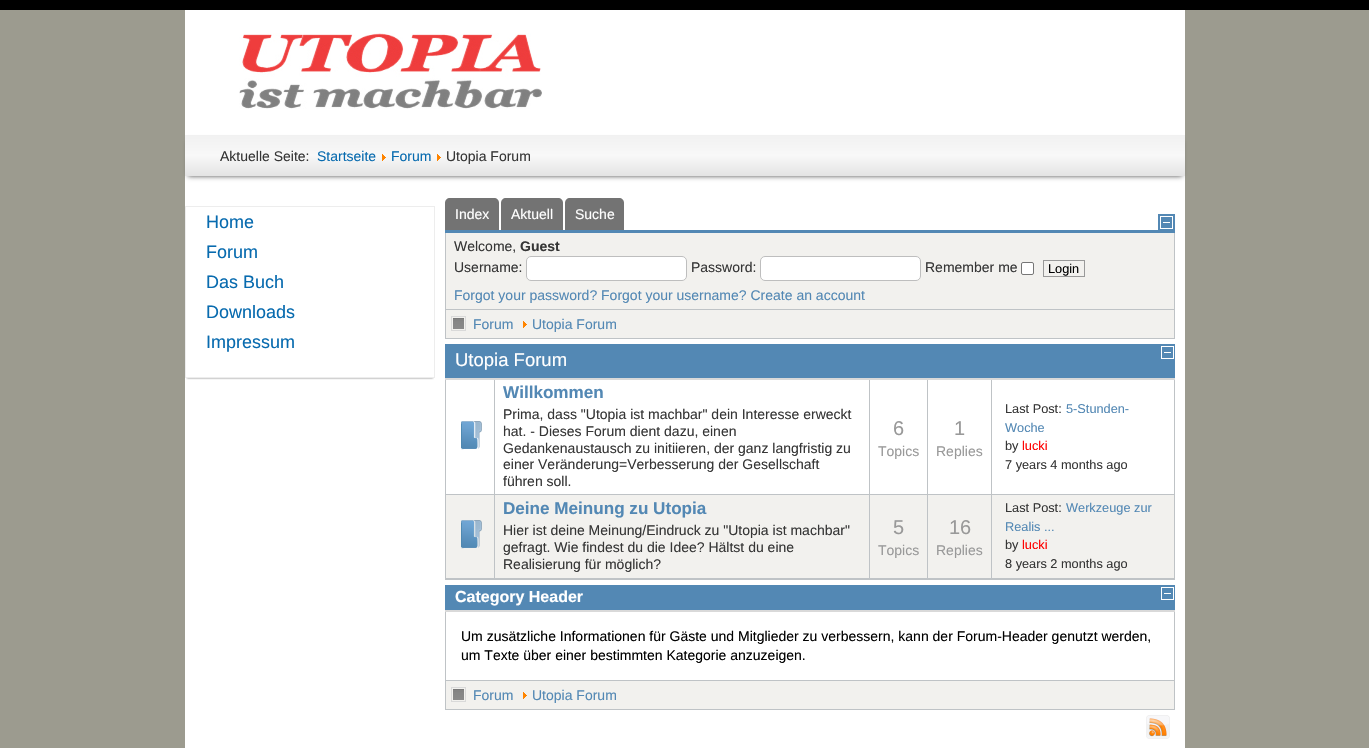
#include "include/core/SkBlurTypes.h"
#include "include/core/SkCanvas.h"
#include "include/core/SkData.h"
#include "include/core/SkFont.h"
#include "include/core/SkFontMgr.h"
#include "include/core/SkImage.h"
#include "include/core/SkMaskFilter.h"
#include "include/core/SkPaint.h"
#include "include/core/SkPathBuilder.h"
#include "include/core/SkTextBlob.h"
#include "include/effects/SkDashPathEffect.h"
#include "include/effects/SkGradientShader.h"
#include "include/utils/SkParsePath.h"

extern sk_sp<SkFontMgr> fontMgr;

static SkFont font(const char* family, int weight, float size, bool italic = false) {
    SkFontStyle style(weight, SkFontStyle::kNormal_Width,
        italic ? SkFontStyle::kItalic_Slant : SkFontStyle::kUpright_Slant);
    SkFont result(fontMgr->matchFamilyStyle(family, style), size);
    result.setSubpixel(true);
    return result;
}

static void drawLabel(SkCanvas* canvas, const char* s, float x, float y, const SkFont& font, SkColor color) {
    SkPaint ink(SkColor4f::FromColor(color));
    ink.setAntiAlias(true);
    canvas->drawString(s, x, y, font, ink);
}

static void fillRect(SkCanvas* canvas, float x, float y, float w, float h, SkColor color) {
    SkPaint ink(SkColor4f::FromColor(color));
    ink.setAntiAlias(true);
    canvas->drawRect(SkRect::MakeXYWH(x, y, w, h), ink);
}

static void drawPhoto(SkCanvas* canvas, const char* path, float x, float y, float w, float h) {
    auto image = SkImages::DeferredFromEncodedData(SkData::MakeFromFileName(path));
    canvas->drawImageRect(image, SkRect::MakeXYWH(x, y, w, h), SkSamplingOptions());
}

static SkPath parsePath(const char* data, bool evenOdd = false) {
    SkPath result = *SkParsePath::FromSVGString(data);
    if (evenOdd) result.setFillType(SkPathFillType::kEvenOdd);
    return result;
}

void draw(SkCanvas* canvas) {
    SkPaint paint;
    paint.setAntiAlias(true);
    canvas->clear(0xFF9C9B8F);
    fillRect(canvas, 0, 0, 1369, 10, 0xFF000000);
    fillRect(canvas, 185, 10, 1000, 738, 0xFFFFFFFF);
    drawPhoto(canvas, "assets/img1.png", 239, 33, 303, 76);
    paint.setColor(0xFF4A4A4A);
    paint.setMaskFilter(SkMaskFilter::MakeBlur(kNormal_SkBlurStyle, 2.5f));
    canvas->drawRect(SkRect::MakeXYWH(188, 141, 994, 35), paint);
    paint.setMaskFilter(nullptr);
    {
        const SkColor colors[] = {0xFFF1F1F1, 0xFFF8F8F8, 0xFFE4E4E4};
        const float stops[] = {0, 0.5f, 1};
        const SkPoint ends[] = {{185, 135}, {185, 176}};
        paint.setShader(SkGradientShader::MakeLinear(ends, colors, stops, 3, SkTileMode::kClamp));
        paint.setAlpha(255);
    }
    canvas->drawRect(SkRect::MakeXYWH(185, 135, 1000, 41), paint);
    SkFont font1 = font("Liberation Sans", 400, 14);
    drawLabel(canvas, "Aktuelle Seite:", 220, 161, font1, 0xFF363636);
    drawLabel(canvas, "Startseite", 317, 161, font1, 0xFF086BAF);
    drawPhoto(canvas, "assets/img2.png", 382, 154, 4, 7);
    drawLabel(canvas, "Forum", 391, 161, font1, 0xFF086BAF);
    drawPhoto(canvas, "assets/img2.png", 437, 154, 4, 7);
    drawLabel(canvas, "Utopia Forum", 446, 161, font1, 0xFF363636);
    canvas->save();
    canvas->clipRect(SkRect::MakeXYWH(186, 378, 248, 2));
    paint.setShader(nullptr);
    paint.setColor(0xFF737373);
    paint.setMaskFilter(SkMaskFilter::MakeBlur(kNormal_SkBlurStyle, 1));
    canvas->drawRect(SkRect::MakeXYWH(187, 210, 246, 168), paint);
    paint.setMaskFilter(nullptr);
    canvas->restore();
    paint.setStroke(true);
    paint.setStrokeWidth(1);
    paint.setColor(0xFFEDEDED);
    canvas->drawRect(SkRect::MakeXYWH(185.5f, 206.5f, 249, 171), paint);
    SkFont font2 = font("Liberation Sans", 400, 18);
    drawLabel(canvas, "Home", 206, 228, font2, 0xFF086BAF);
    drawLabel(canvas, "Forum", 206, 258, font2, 0xFF086BAF);
    drawLabel(canvas, "Das Buch", 206, 288, font2, 0xFF086BAF);
    drawLabel(canvas, "Downloads", 206, 318, font2, 0xFF086BAF);
    drawLabel(canvas, "Impressum", 206, 348, font2, 0xFF086BAF);
    fillRect(canvas, 445, 230, 730, 3, 0xFF5388B4);
    paint.setStroke(false);
    paint.setColor(0xFF737373);
    canvas->drawPath(parsePath("M450 198H494C497 198 499 200 499 203V230H445V203C445 200 447 198 450 198Z"), paint);
    drawLabel(canvas, "Index", 455, 219, font1, 0xFFFFFFFF);
    canvas->drawPath(parsePath("M506 198H558C561 198 563 200 563 203V230H501V203C501 200 503 198 506 198Z"), paint);
    drawLabel(canvas, "Aktuell", 511, 219, font1, 0xFFFFFFFF);
    canvas->drawPath(parsePath("M570 198H619C622 198 624 200 624 203V230H565V203C565 200 567 198 570 198Z"), paint);
    drawLabel(canvas, "Suche", 575, 219, font1, 0xFFFFFFFF);
    fillRect(canvas, 1158, 214, 17, 16, 0xFF5388B4);
    drawPhoto(canvas, "assets/img3.png", 1160, 216, 13, 13);
    fillRect(canvas, 445, 309, 730, 1, 0xFFBFC3C6);
    fillRect(canvas, 1174, 233, 1, 76, 0xFFBFC3C6);
    fillRect(canvas, 445, 233, 1, 76, 0xFFBFC3C6);
    fillRect(canvas, 446, 233, 728, 76, 0xFFF2F1EE);
    drawLabel(canvas, "Welcome,", 454, 251, font1, 0xFF363636);
    SkFont font3 = font("Liberation Sans", 700, 14);
    drawLabel(canvas, "Guest", 520, 251, font3, 0xFF363636);
    drawLabel(canvas, "Username:", 454, 272, font1, 0xFF363636);
    paint.setColor(0xFFFFFFFF);
    canvas->drawRoundRect(SkRect::MakeXYWH(526.5f, 256.5f, 160, 24), 4.5f, 4.5f, paint);
    paint.setStroke(true);
    paint.setColor(0xFFBEBEBE);
    canvas->drawRoundRect(SkRect::MakeXYWH(526.5f, 256.5f, 160, 24), 4.5f, 4.5f, paint);
    drawLabel(canvas, "Password:", 691, 272, font1, 0xFF363636);
    paint.setStroke(false);
    paint.setColor(0xFFFFFFFF);
    canvas->drawRoundRect(SkRect::MakeXYWH(760.5f, 256.5f, 160, 24), 4.5f, 4.5f, paint);
    paint.setStroke(true);
    paint.setColor(0xFFBEBEBE);
    canvas->drawRoundRect(SkRect::MakeXYWH(760.5f, 256.5f, 160, 24), 4.5f, 4.5f, paint);
    drawLabel(canvas, "Remember me", 925, 272, font1, 0xFF363636);
    paint.setStroke(false);
    paint.setColor(0xFFFFFFFF);
    canvas->drawRoundRect(SkRect::MakeXYWH(1021.5f, 262.5f, 12, 12), 1.5f, 1.5f, paint);
    paint.setStroke(true);
    paint.setColor(0xFF767676);
    canvas->drawRoundRect(SkRect::MakeXYWH(1021.5f, 262.5f, 12, 12), 1.5f, 1.5f, paint);
    paint.setColor(0xFF999999);
    canvas->drawRect(SkRect::MakeXYWH(1043.5f, 260.5f, 41, 16), paint);
    SkFont font4 = font("Liberation Sans", 400, 12.75f);
    drawLabel(canvas, "Login", 1048, 273, font4, 0xFF000000);
    drawLabel(canvas, "Forgot your password? Forgot your username? Create an account", 454, 300, font1, 0xFF5388B4);
    fillRect(canvas, 445, 338, 730, 1, 0xFFBFC3C6);
    fillRect(canvas, 446, 310, 728, 28, 0xFFF2F1EE);
    fillRect(canvas, 1174, 310, 1, 28, 0xFFBFC3C6);
    fillRect(canvas, 445, 310, 1, 28, 0xFFBFC3C6);
    drawPhoto(canvas, "assets/img4.png", 451, 316, 15, 15);
    drawLabel(canvas, "Forum", 473, 329, font1, 0xFF5388B4);
    drawPhoto(canvas, "assets/img5.png", 523, 321, 4, 7);
    drawLabel(canvas, "Utopia Forum", 532, 329, font1, 0xFF5388B4);
    fillRect(canvas, 445, 579, 730, 1, 0xFFBFC3C6);
    fillRect(canvas, 445, 344, 730, 34, 0xFF5388B4);
    fillRect(canvas, 445, 378, 730, 2, 0xFFD9D9D9);
    SkFont font5 = font("Liberation Sans", 400, 18.5f);
    drawLabel(canvas, "Utopia Forum", 455, 366, font5, 0xFFFFFFFF);
    drawPhoto(canvas, "assets/img3.png", 1161, 346, 13, 13);
    fillRect(canvas, 1174, 380, 1, 199, 0xFFBFC3C6);
    fillRect(canvas, 445, 380, 1, 199, 0xFFBFC3C6);
    fillRect(canvas, 991, 578, 183, 1, 0xFFBFC3C6);
    fillRect(canvas, 991, 494, 1, 85, 0xFFBFC3C6);
    fillRect(canvas, 991, 494, 183, 1, 0xFFBFC3C6);
    fillRect(canvas, 991, 380, 1, 115, 0xFFBFC3C6);
    fillRect(canvas, 927, 578, 65, 1, 0xFFBFC3C6);
    fillRect(canvas, 927, 494, 1, 85, 0xFFBFC3C6);
    fillRect(canvas, 927, 494, 65, 1, 0xFFBFC3C6);
    fillRect(canvas, 927, 380, 1, 115, 0xFFBFC3C6);
    fillRect(canvas, 869, 578, 59, 1, 0xFFBFC3C6);
    fillRect(canvas, 869, 494, 1, 85, 0xFFBFC3C6);
    fillRect(canvas, 869, 494, 59, 1, 0xFFBFC3C6);
    fillRect(canvas, 869, 380, 1, 115, 0xFFBFC3C6);
    fillRect(canvas, 494, 578, 376, 1, 0xFFBFC3C6);
    fillRect(canvas, 494, 494, 1, 85, 0xFFBFC3C6);
    fillRect(canvas, 494, 494, 376, 1, 0xFFBFC3C6);
    fillRect(canvas, 494, 380, 1, 115, 0xFFBFC3C6);
    fillRect(canvas, 446, 494, 49, 1, 0xFFBFC3C6);
    drawPhoto(canvas, "assets/img6.png", 461, 421, 21, 29);
    SkFont font6 = font("Liberation Sans", 700, 17.1f);
    drawLabel(canvas, "Willkommen", 503, 398, font6, 0xFF5388B4);
    drawLabel(canvas, "Prima, dass \"Utopia ist machbar\" dein Interesse erweckt", 503, 419, font1, 0xFF363636);
    drawLabel(canvas, "hat. - Dieses Forum dient dazu, einen", 503, 436, font1, 0xFF363636);
    drawLabel(canvas, "Gedankenaustausch zu initiieren, der ganz langfristig zu", 503, 453, font1, 0xFF363636);
    drawLabel(canvas, "einer Veränderung=Verbesserung der Gesellschaft", 503, 469, font1, 0xFF363636);
    drawLabel(canvas, "führen soll.", 503, 486, font1, 0xFF363636);
    SkFont font7 = font("Liberation Sans", 400, 20);
    drawLabel(canvas, "6", 893, 435, font7, 0xFF999999);
    drawLabel(canvas, "Topics", 878, 456, font1, 0xFF999999);
    drawLabel(canvas, "1", 954, 435, font7, 0xFF999999);
    drawLabel(canvas, "Replies", 936, 456, font1, 0xFF999999);
    drawLabel(canvas, "Last Post:", 1005, 413, font4, 0xFF363636);
    drawLabel(canvas, "5-Stunden-", 1066, 413, font4, 0xFF5388B4);
    drawLabel(canvas, "Woche", 1005, 432, font4, 0xFF5388B4);
    drawLabel(canvas, "by", 1005, 450, font4, 0xFF363636);
    drawLabel(canvas, "lucki", 1022, 450, font4, 0xFFFF0000);
    drawLabel(canvas, "7 years 4 months ago", 1005, 469, font4, 0xFF363636);
    fillRect(canvas, 446, 495, 48, 83, 0xFFF2F1EE);
    fillRect(canvas, 446, 578, 49, 1, 0xFFBFC3C6);
    drawPhoto(canvas, "assets/img7.png", 461, 520, 21, 29);
    fillRect(canvas, 495, 495, 374, 83, 0xFFF2F1EE);
    drawLabel(canvas, "Deine Meinung zu Utopia", 503, 514, font6, 0xFF5388B4);
    drawLabel(canvas, "Hier ist deine Meinung/Eindruck zu \"Utopia ist machbar\"", 503, 535, font1, 0xFF363636);
    drawLabel(canvas, "gefragt. Wie findest du die Idee? Hältst du eine", 503, 552, font1, 0xFF363636);
    drawLabel(canvas, "Realisierung für möglich?", 503, 569, font1, 0xFF363636);
    fillRect(canvas, 870, 495, 57, 83, 0xFFF2F1EE);
    drawLabel(canvas, "5", 893, 534, font7, 0xFF999999);
    drawLabel(canvas, "Topics", 878, 555, font1, 0xFF999999);
    fillRect(canvas, 928, 495, 63, 83, 0xFFF2F1EE);
    drawLabel(canvas, "16", 949, 534, font7, 0xFF999999);
    drawLabel(canvas, "Replies", 936, 555, font1, 0xFF999999);
    fillRect(canvas, 992, 495, 182, 83, 0xFFF2F1EE);
    drawLabel(canvas, "Last Post:", 1005, 512, font4, 0xFF363636);
    drawLabel(canvas, "Werkzeuge zur", 1066, 512, font4, 0xFF5388B4);
    drawLabel(canvas, "Realis ...", 1005, 531, font4, 0xFF5388B4);
    drawLabel(canvas, "by", 1005, 549, font4, 0xFF363636);
    drawLabel(canvas, "lucki", 1022, 549, font4, 0xFFFF0000);
    drawLabel(canvas, "8 years 2 months ago", 1005, 568, font4, 0xFF363636);
    fillRect(canvas, 445, 680, 730, 1, 0xFFBFC3C6);
    fillRect(canvas, 445, 585, 730, 25, 0xFF5388B4);
    fillRect(canvas, 445, 610, 730, 2, 0xFFD9D9D9);
    SkFont font8 = font("Liberation Sans", 700, 16);
    drawLabel(canvas, "Category Header", 455, 602, font8, 0xFFFFFFFF);
    drawPhoto(canvas, "assets/img3.png", 1161, 587, 13, 13);
    fillRect(canvas, 1174, 612, 1, 68, 0xFFBFC3C6);
    fillRect(canvas, 445, 612, 1, 68, 0xFFBFC3C6);
    drawLabel(canvas, "Um zusätzliche Informationen für Gäste und Mitglieder zu verbessern, kann der Forum-Header genutzt werden,", 461, 641, font1, 0xFF000000);
    drawLabel(canvas, "um Texte über einer bestimmten Kategorie anzuzeigen.", 461, 660, font1, 0xFF000000);
    fillRect(canvas, 445, 709, 730, 1, 0xFFBFC3C6);
    fillRect(canvas, 446, 681, 728, 28, 0xFFF2F1EE);
    fillRect(canvas, 1174, 681, 1, 28, 0xFFBFC3C6);
    fillRect(canvas, 445, 681, 1, 28, 0xFFBFC3C6);
    drawPhoto(canvas, "assets/img4.png", 451, 687, 15, 15);
    drawLabel(canvas, "Forum", 473, 700, font1, 0xFF5388B4);
    drawPhoto(canvas, "assets/img5.png", 523, 692, 4, 7);
    drawLabel(canvas, "Utopia Forum", 532, 700, font1, 0xFF5388B4);
    drawPhoto(canvas, "assets/img8.png", 1146, 715, 24, 24);
}
